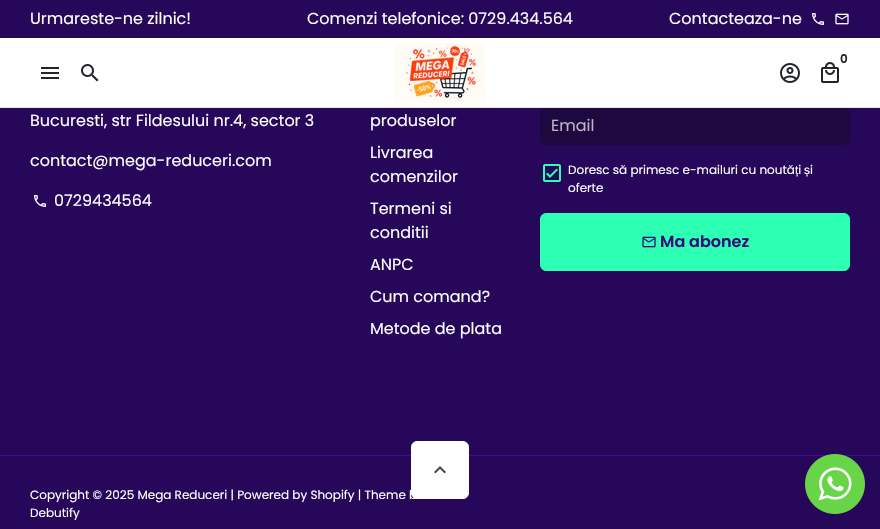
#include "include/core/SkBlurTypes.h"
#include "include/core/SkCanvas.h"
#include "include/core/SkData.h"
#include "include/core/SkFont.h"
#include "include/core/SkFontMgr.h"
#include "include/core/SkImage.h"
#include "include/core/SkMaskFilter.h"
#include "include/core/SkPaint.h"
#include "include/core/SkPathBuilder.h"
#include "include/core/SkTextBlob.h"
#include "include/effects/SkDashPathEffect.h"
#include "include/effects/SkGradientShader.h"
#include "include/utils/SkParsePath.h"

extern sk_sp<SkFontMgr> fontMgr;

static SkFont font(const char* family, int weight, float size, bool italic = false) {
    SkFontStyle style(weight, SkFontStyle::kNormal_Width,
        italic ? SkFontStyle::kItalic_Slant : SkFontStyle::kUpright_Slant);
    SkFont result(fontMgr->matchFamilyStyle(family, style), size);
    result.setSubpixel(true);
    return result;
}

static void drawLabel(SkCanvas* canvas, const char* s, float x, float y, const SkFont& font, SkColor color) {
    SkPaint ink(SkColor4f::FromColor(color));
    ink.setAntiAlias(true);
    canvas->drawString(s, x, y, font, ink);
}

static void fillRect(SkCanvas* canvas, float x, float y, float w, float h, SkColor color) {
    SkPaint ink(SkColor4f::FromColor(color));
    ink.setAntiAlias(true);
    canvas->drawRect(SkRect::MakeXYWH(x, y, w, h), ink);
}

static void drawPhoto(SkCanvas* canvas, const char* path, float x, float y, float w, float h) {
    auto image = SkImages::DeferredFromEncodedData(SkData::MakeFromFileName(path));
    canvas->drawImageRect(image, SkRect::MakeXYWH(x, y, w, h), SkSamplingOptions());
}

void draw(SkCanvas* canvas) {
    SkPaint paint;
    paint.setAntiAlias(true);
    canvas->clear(0xFF260759);
    SkFont font1 = font("Poppins", 400, 16);
    drawLabel(canvas, "Urmareste-ne zilnic!", 30, 24, font1, 0xFFFFFFFF);
    drawLabel(canvas, "Comenzi telefonice: 0729.434.564", 307, 24, font1, 0xFFFFFFFF);
    drawLabel(canvas, "Contacteaza-ne", 669, 24, font1, 0xFFFFFFFF);
    drawPhoto(canvas, "assets/img1.png", 812, 13, 12, 12);
    drawPhoto(canvas, "assets/img2.png", 835, 13, 14, 12);
    fillRect(canvas, 0, 38, 880, 69, 0xFFFFFFFF);
    paint.setColor(0xFF1E0840);
    canvas->drawRoundRect(SkRect::MakeXYWH(540.5f, 107.5f, 309, 37), 5.5f, 5.5f, paint);
    paint.setStroke(true);
    paint.setStrokeWidth(1);
    canvas->drawRoundRect(SkRect::MakeXYWH(540.5f, 107.5f, 309, 37), 5.5f, 5.5f, paint);
    fillRect(canvas, 0, 107, 880, 1, 0xFFE5E5E5);
    drawPhoto(canvas, "assets/img3.png", 395, 43, 90, 60);
    SkFont font2 = font("Poppins", 600, 12);
    drawLabel(canvas, "0", 840, 63, font2, 0xFF212529);
    drawPhoto(canvas, "assets/img4.png", 821, 62, 18, 21);
    drawPhoto(canvas, "assets/img5.png", 780, 63, 20, 20);
    drawPhoto(canvas, "assets/img6.png", 41, 67, 18, 12);
    drawPhoto(canvas, "assets/img7.png", 81, 64, 18, 18);
    drawLabel(canvas, "Bucuresti, str Fildesului nr.4, sector 3", 30, 126, font1, 0xFFFFFFFF);
    drawLabel(canvas, "contact@mega-reduceri.com", 30, 166, font1, 0xFFFFFFFF);
    drawPhoto(canvas, "assets/img1.png", 34, 195, 12, 12);
    drawLabel(canvas, "0729434564", 54, 206, font1, 0xFFFFFFFF);
    drawLabel(canvas, "produselor", 370, 126, font1, 0xFFFFFFFF);
    drawLabel(canvas, "Livrarea", 370, 158, font1, 0xFFFFFFFF);
    drawLabel(canvas, "comenzilor", 370, 182, font1, 0xFFFFFFFF);
    drawLabel(canvas, "Termeni si", 370, 214, font1, 0xFFFFFFFF);
    drawLabel(canvas, "conditii", 370, 238, font1, 0xFFFFFFFF);
    drawLabel(canvas, "ANPC", 370, 270, font1, 0xFFFFFFFF);
    drawLabel(canvas, "Cum comand?", 370, 302, font1, 0xFFFFFFFF);
    drawLabel(canvas, "Metode de plata", 370, 334, font1, 0xFFFFFFFF);
    drawLabel(canvas, "Email", 551, 131, font1, 0xFFBCB5C6);
    drawPhoto(canvas, "assets/img8.png", 543, 164, 18, 18);
    SkFont font3 = font("Poppins", 400, 12);
    drawLabel(canvas, "Doresc să primesc e-mailuri cu noută i", 568, 174, font3, 0xFFFFFFFF);
    drawLabel(canvas, "i", 810, 174, font3, 0xFFFFFFFF);
    SkFont font4 = font("Liberation Sans", 400, 12);
    drawLabel(canvas, "ț", 795, 174, font4, 0xFFFFFFFF);
    drawLabel(canvas, "ș", 804, 174, font4, 0xFFFFFFFF);
    drawLabel(canvas, "oferte", 568, 192, font3, 0xFFFFFFFF);
    paint.setStroke(false);
    paint.setColor(0xFF2DFFB3);
    canvas->drawRoundRect(SkRect::MakeXYWH(540.5f, 213.5f, 309, 57), 5.5f, 5.5f, paint);
    paint.setStroke(true);
    canvas->drawRoundRect(SkRect::MakeXYWH(540.5f, 213.5f, 309, 57), 5.5f, 5.5f, paint);
    drawPhoto(canvas, "assets/img9.png", 642, 236, 14, 12);
    SkFont font5 = font("Poppins", 600, 16);
    drawLabel(canvas, "Ma abonez", 660, 247, font5, 0xFF360C7B);
    fillRect(canvas, 0, 455, 880, 1, 0xFF3E0E8F);
    drawLabel(canvas, "Copyright © 2025 Mega Reduceri | Powered by Shopify | Theme b", 30, 499, font3, 0xFFFFFFFF);
    drawLabel(canvas, "Debutify", 30, 517, font3, 0xFFFFFFFF);
    paint.setStroke(false);
    paint.setColor(0xFFFFFFFF);
    canvas->drawRoundRect(SkRect::MakeXYWH(411.5f, 441.5f, 57, 57), 5.5f, 5.5f, paint);
    paint.setStroke(true);
    canvas->drawRoundRect(SkRect::MakeXYWH(411.5f, 441.5f, 57, 57), 5.5f, 5.5f, paint);
    drawPhoto(canvas, "assets/img10.png", 434, 466, 12, 8);
    drawPhoto(canvas, "assets/img11.png", 805, 454, 60, 60);
}
